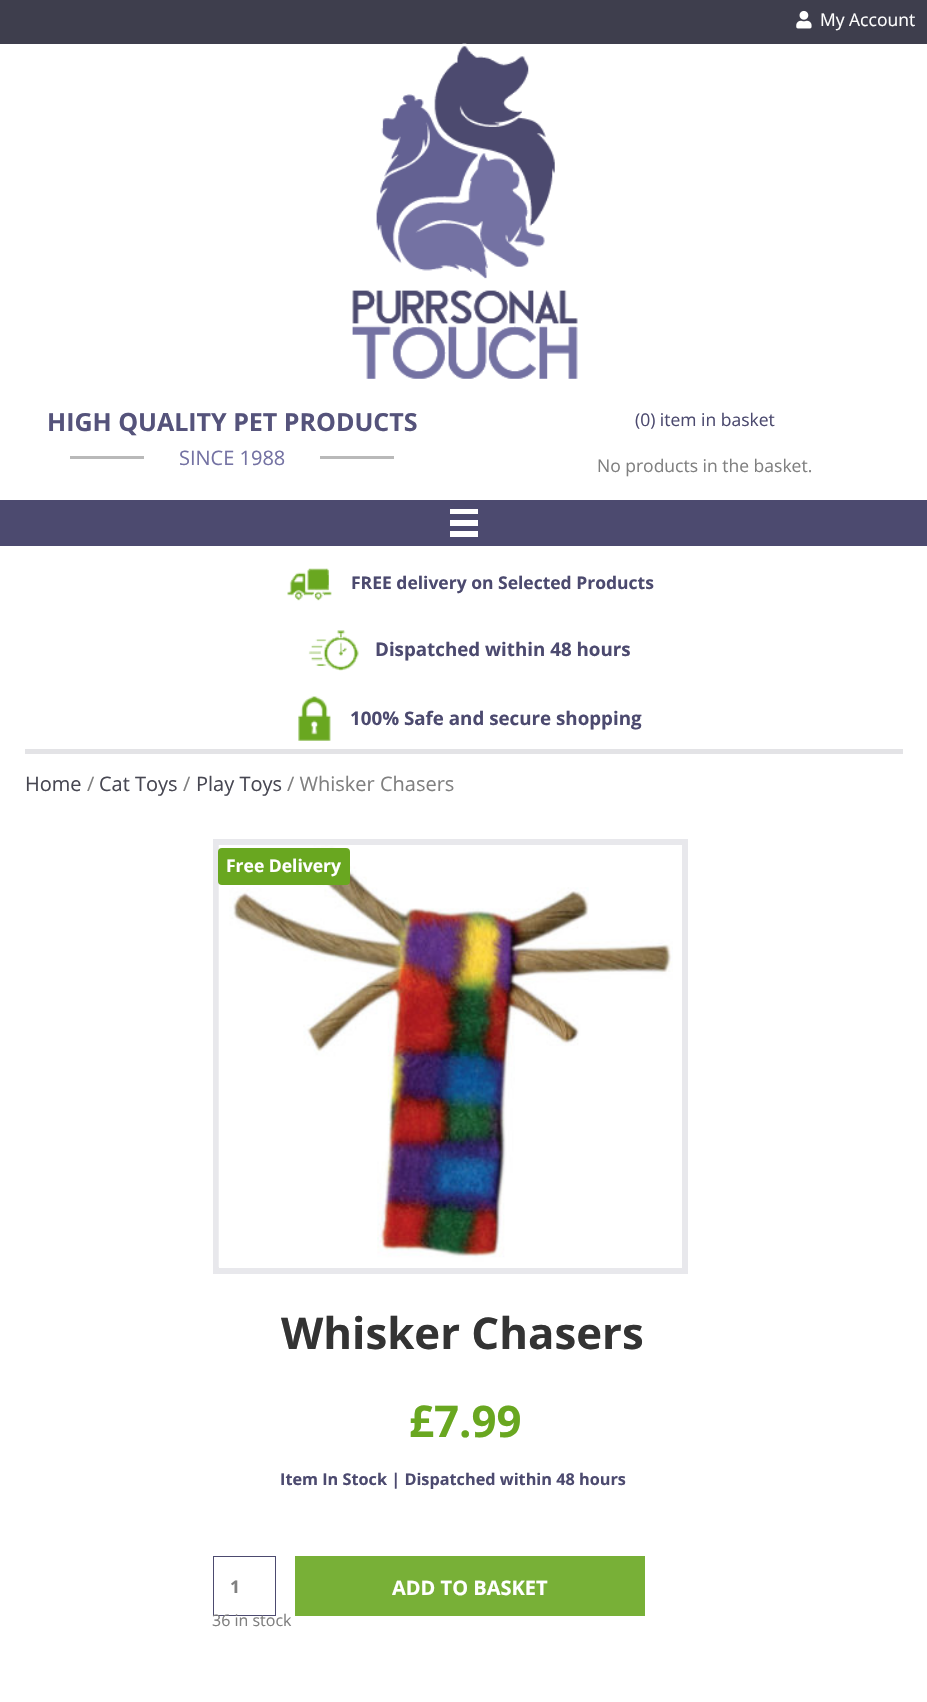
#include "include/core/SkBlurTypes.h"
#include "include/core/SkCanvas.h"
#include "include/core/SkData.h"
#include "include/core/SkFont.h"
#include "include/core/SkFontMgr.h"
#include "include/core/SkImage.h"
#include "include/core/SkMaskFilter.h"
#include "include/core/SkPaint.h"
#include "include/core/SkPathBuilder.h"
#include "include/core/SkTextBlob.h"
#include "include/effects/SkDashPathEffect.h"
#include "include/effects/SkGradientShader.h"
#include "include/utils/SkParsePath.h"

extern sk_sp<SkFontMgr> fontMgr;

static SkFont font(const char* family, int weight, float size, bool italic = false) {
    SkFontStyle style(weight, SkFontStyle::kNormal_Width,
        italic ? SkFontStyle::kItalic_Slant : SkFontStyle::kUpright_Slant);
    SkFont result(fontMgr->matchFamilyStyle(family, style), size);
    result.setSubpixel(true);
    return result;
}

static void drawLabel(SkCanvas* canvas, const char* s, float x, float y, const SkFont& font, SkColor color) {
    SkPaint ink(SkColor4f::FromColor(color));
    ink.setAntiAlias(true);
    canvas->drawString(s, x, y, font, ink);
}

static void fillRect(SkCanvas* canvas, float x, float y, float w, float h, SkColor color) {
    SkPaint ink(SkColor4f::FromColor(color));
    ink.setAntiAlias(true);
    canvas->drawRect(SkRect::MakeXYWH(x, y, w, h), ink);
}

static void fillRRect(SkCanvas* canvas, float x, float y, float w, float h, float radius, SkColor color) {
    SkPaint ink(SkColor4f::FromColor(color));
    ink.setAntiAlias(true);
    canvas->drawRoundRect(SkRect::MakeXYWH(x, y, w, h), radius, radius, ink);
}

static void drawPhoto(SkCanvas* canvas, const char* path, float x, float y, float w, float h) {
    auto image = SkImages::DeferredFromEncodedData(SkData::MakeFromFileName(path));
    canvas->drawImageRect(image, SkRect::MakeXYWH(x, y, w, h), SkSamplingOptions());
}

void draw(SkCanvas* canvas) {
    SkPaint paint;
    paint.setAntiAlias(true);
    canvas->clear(0xFFFFFFFF);
    fillRect(canvas, 0, 0, 927, 44, 0xFF3E3E4D);
    drawPhoto(canvas, "assets/img1.png", 796, 10, 16, 19);
    SkFont font1 = font("Open Sans", 400, 17.5f);
    drawLabel(canvas, "My Account", 820, 26, font1, 0xFFFFFFFF);
    drawPhoto(canvas, "assets/img2.png", 352, 43, 226, 336);
    SkFont font2 = font("Open Sans", 700, 25);
    drawLabel(canvas, "HIGH QUALITY PET PRODUCTS", 47, 431, font2, 0xFF55537B);
    fillRect(canvas, 70, 456, 74, 3, 0xFFB9B9B9);
    SkFont font3 = font("Open Sans", 400, 20);
    drawLabel(canvas, "SINCE 1988", 179, 465, font3, 0xFF7472A3);
    fillRect(canvas, 320, 456, 74, 3, 0xFFB9B9B9);
    drawLabel(canvas, "(0) item in basket", 635, 426, font1, 0xFF4C4A6F);
    drawLabel(canvas, "No products in the basket.", 597, 472, font1, 0xFF808080);
    fillRect(canvas, 0, 500, 927, 46, 0xFF4C4A6F);
    fillRect(canvas, 450, 509, 28, 5, 0xFFFFFFFF);
    fillRect(canvas, 450, 520, 28, 6, 0xFFFFFFFF);
    fillRect(canvas, 450, 531, 28, 6, 0xFFFFFFFF);
    drawPhoto(canvas, "assets/img3.png", 287, 568, 45, 33);
    SkFont font4 = font("Open Sans", 700, 17.5f);
    drawLabel(canvas, "FREE delivery on Selected Products", 351, 589, font4, 0xFF4C4A6F);
    drawPhoto(canvas, "assets/img4.png", 308, 630, 51, 41);
    SkFont font5 = font("Open Sans", 700, 18.75f);
    drawLabel(canvas, "Dispatched within 48 hours", 375, 656, font5, 0xFF4C4A6F);
    drawPhoto(canvas, "assets/img5.png", 298, 696, 33, 45);
    drawLabel(canvas, "100% Safe and secure shopping", 350, 725, font5, 0xFF4C4A6F);
    fillRect(canvas, 25, 749, 878, 5, 0xFFE3E3E6);
    drawLabel(canvas, "Home", 25, 791, font3, 0xFF474752);
    drawLabel(canvas, "/", 87, 791, font3, 0xFF808080);
    drawLabel(canvas, "Cat Toys", 99, 791, font3, 0xFF474752);
    drawLabel(canvas, "/", 183, 791, font3, 0xFF808080);
    drawLabel(canvas, "Play Toys", 196, 791, font3, 0xFF474752);
    drawLabel(canvas, "/ Whisker Chasers", 287, 791, font3, 0xFF808080);
    paint.setStroke(true);
    paint.setStrokeWidth(6);
    paint.setColor(0xFFE8E8EC);
    canvas->drawRect(SkRect::MakeXYWH(216, 842, 469, 429), paint);
    drawPhoto(canvas, "assets/img6.png", 218, 845, 455, 422);
    fillRRect(canvas, 218, 848, 132, 37, 4, 0xFF69A720);
    drawLabel(canvas, "Free Delivery", 226, 872, font4, 0xFFFFFFFF);
    SkFont font6 = font("Open Sans", 700, 43.75f);
    drawLabel(canvas, "Whisker Chasers", 281, 1349, font6, 0xFF333333);
    drawLabel(canvas, "£7.99", 409, 1437, font6, 0xFF69A720);
    SkFont font7 = font("Open Sans", 700, 16.25f);
    drawLabel(canvas, "Item In Stock | Dispatched within 48 hours", 280, 1485, font7, 0xFF4C4A6F);
    paint.setStrokeWidth(1);
    paint.setColor(0xFF4C4A6F);
    canvas->drawRect(SkRect::MakeXYWH(213.5f, 1556.5f, 62, 59), paint);
    drawLabel(canvas, "1", 230, 1593, font4, 0xFF808080);
    fillRect(canvas, 295, 1556, 350, 60, 0xFF78B037);
    SkFont font8 = font("Open Sans", 700, 20);
    drawLabel(canvas, "ADD TO BASKET", 392, 1595, font8, 0xFFFFFFFF);
    SkFont font9 = font("Open Sans", 400, 16);
    drawLabel(canvas, "36 in stock", 212, 1626, font9, 0xFF808080);
}
